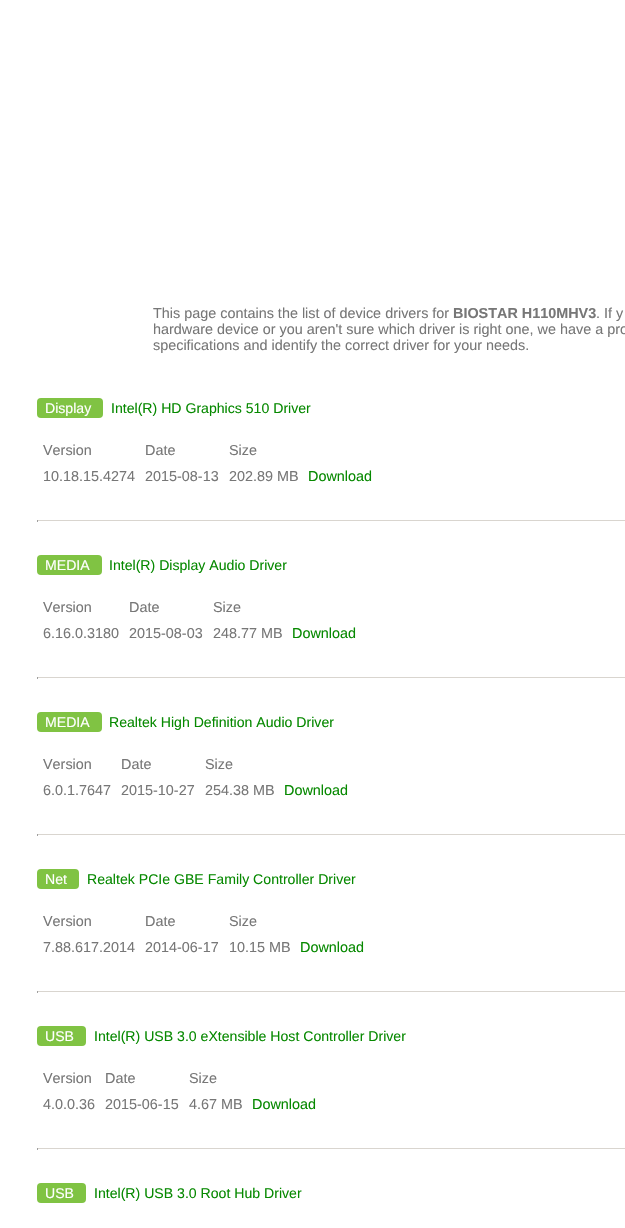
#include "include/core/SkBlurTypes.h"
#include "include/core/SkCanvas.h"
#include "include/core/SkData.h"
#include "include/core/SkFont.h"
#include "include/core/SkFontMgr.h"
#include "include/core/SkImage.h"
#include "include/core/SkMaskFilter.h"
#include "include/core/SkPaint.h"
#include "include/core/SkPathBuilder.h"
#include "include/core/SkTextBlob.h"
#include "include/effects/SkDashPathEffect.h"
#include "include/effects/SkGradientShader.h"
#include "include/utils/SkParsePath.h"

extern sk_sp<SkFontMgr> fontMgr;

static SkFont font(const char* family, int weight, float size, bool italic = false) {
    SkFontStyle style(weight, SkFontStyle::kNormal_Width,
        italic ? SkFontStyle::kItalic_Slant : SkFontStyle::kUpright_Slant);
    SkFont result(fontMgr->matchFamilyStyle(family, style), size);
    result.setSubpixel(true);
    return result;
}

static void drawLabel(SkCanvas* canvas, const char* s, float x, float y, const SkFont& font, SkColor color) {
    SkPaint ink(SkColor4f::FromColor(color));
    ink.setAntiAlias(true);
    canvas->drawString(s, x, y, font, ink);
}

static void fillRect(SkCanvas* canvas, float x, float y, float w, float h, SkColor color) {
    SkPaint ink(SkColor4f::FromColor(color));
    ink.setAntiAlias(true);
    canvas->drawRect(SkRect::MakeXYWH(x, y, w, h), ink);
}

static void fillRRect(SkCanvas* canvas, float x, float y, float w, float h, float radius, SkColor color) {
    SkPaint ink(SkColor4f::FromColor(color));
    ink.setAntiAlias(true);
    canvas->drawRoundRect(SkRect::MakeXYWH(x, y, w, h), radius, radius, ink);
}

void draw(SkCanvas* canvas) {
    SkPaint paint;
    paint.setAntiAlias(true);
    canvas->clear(0xFFFFFFFF);
    SkFont font1 = font("Liberation Sans", 400, 14.4f);
    drawLabel(canvas, "This page contains the list of device drivers for", 153, 318, font1, 0xFF777777);
    SkFont font2 = font("Liberation Sans", 700, 14.4f);
    drawLabel(canvas, "BIOSTAR H110MHV3", 453, 318, font2, 0xFF777777);
    drawLabel(canvas, ". If y", 596, 318, font1, 0xFF777777);
    drawLabel(canvas, "hardware device or you aren't sure which driver is right one, we have a pro", 153, 334, font1, 0xFF777777);
    drawLabel(canvas, "specifications and identify the correct driver for your needs.", 153, 350, font1, 0xFF777777);
    fillRRect(canvas, 37, 398, 66, 20, 4, 0xFF80C343);
    SkFont font3 = font("Liberation Sans", 400, 14.1f);
    drawLabel(canvas, "Display", 45, 413, font3, 0xFFFFFFFF);
    drawLabel(canvas, "Intel(R) HD Graphics 510 Driver", 111, 413, font3, 0xFF068900);
    drawLabel(canvas, "Version", 43, 455, font1, 0xFF777777);
    drawLabel(canvas, "Date", 145, 455, font1, 0xFF777777);
    drawLabel(canvas, "Size", 229, 455, font1, 0xFF777777);
    drawLabel(canvas, "10.18.15.4274", 43, 481, font1, 0xFF777777);
    drawLabel(canvas, "2015-08-13", 145, 481, font1, 0xFF777777);
    drawLabel(canvas, "202.89 MB", 229, 481, font1, 0xFF777777);
    drawLabel(canvas, "Download", 308, 481, font1, 0xFF068900);
    fillRect(canvas, 37, 520, 588, 1, 0xFFD9D5CF);
    fillRect(canvas, 37, 520, 1, 2, 0xFF9F9F9F);
    fillRRect(canvas, 37, 555, 65, 20, 4, 0xFF80C343);
    drawLabel(canvas, "MEDIA", 45, 570, font3, 0xFFFFFFFF);
    drawLabel(canvas, "Intel(R) Display Audio Driver", 109, 570, font3, 0xFF068900);
    drawLabel(canvas, "Version", 43, 612, font1, 0xFF777777);
    drawLabel(canvas, "Date", 129, 612, font1, 0xFF777777);
    drawLabel(canvas, "Size", 213, 612, font1, 0xFF777777);
    drawLabel(canvas, "6.16.0.3180", 43, 638, font1, 0xFF777777);
    drawLabel(canvas, "2015-08-03", 129, 638, font1, 0xFF777777);
    drawLabel(canvas, "248.77 MB", 213, 638, font1, 0xFF777777);
    drawLabel(canvas, "Download", 292, 638, font1, 0xFF068900);
    fillRect(canvas, 37, 677, 588, 1, 0xFFD9D5CF);
    fillRect(canvas, 37, 677, 1, 2, 0xFF9F9F9F);
    fillRRect(canvas, 37, 712, 65, 20, 4, 0xFF80C343);
    drawLabel(canvas, "MEDIA", 45, 727, font3, 0xFFFFFFFF);
    drawLabel(canvas, "Realtek High Definition Audio Driver", 109, 727, font3, 0xFF068900);
    drawLabel(canvas, "Version", 43, 769, font1, 0xFF777777);
    drawLabel(canvas, "Date", 121, 769, font1, 0xFF777777);
    drawLabel(canvas, "Size", 205, 769, font1, 0xFF777777);
    drawLabel(canvas, "6.0.1.7647", 43, 795, font1, 0xFF777777);
    drawLabel(canvas, "2015-10-27", 121, 795, font1, 0xFF777777);
    drawLabel(canvas, "254.38 MB", 205, 795, font1, 0xFF777777);
    drawLabel(canvas, "Download", 284, 795, font1, 0xFF068900);
    fillRect(canvas, 37, 834, 588, 1, 0xFFD9D5CF);
    fillRect(canvas, 37, 834, 1, 2, 0xFF9F9F9F);
    fillRRect(canvas, 37, 869, 42, 20, 4, 0xFF80C343);
    drawLabel(canvas, "Net", 45, 884, font3, 0xFFFFFFFF);
    drawLabel(canvas, "Realtek PCIe GBE Family Controller Driver", 87, 884, font3, 0xFF068900);
    drawLabel(canvas, "Version", 43, 926, font1, 0xFF777777);
    drawLabel(canvas, "Date", 145, 926, font1, 0xFF777777);
    drawLabel(canvas, "Size", 229, 926, font1, 0xFF777777);
    drawLabel(canvas, "7.88.617.2014", 43, 952, font1, 0xFF777777);
    drawLabel(canvas, "2014-06-17", 145, 952, font1, 0xFF777777);
    drawLabel(canvas, "10.15 MB", 229, 952, font1, 0xFF777777);
    drawLabel(canvas, "Download", 300, 952, font1, 0xFF068900);
    fillRect(canvas, 37, 991, 588, 1, 0xFFD9D5CF);
    fillRect(canvas, 37, 991, 1, 2, 0xFF9F9F9F);
    fillRRect(canvas, 37, 1026, 49, 20, 4, 0xFF80C343);
    drawLabel(canvas, "USB", 45, 1041, font3, 0xFFFFFFFF);
    drawLabel(canvas, "Intel(R) USB 3.0 eXtensible Host Controller Driver", 94, 1041, font3, 0xFF068900);
    drawLabel(canvas, "Version", 43, 1083, font1, 0xFF777777);
    drawLabel(canvas, "Date", 105, 1083, font1, 0xFF777777);
    drawLabel(canvas, "Size", 189, 1083, font1, 0xFF777777);
    drawLabel(canvas, "4.0.0.36", 43, 1109, font1, 0xFF777777);
    drawLabel(canvas, "2015-06-15", 105, 1109, font1, 0xFF777777);
    drawLabel(canvas, "4.67 MB", 189, 1109, font1, 0xFF777777);
    drawLabel(canvas, "Download", 252, 1109, font1, 0xFF068900);
    fillRect(canvas, 37, 1148, 588, 1, 0xFFD9D5CF);
    fillRect(canvas, 37, 1148, 1, 2, 0xFF9F9F9F);
    fillRRect(canvas, 37, 1183, 49, 20, 4, 0xFF80C343);
    drawLabel(canvas, "USB", 45, 1198, font3, 0xFFFFFFFF);
    drawLabel(canvas, "Intel(R) USB 3.0 Root Hub Driver", 94, 1198, font3, 0xFF068900);
}
